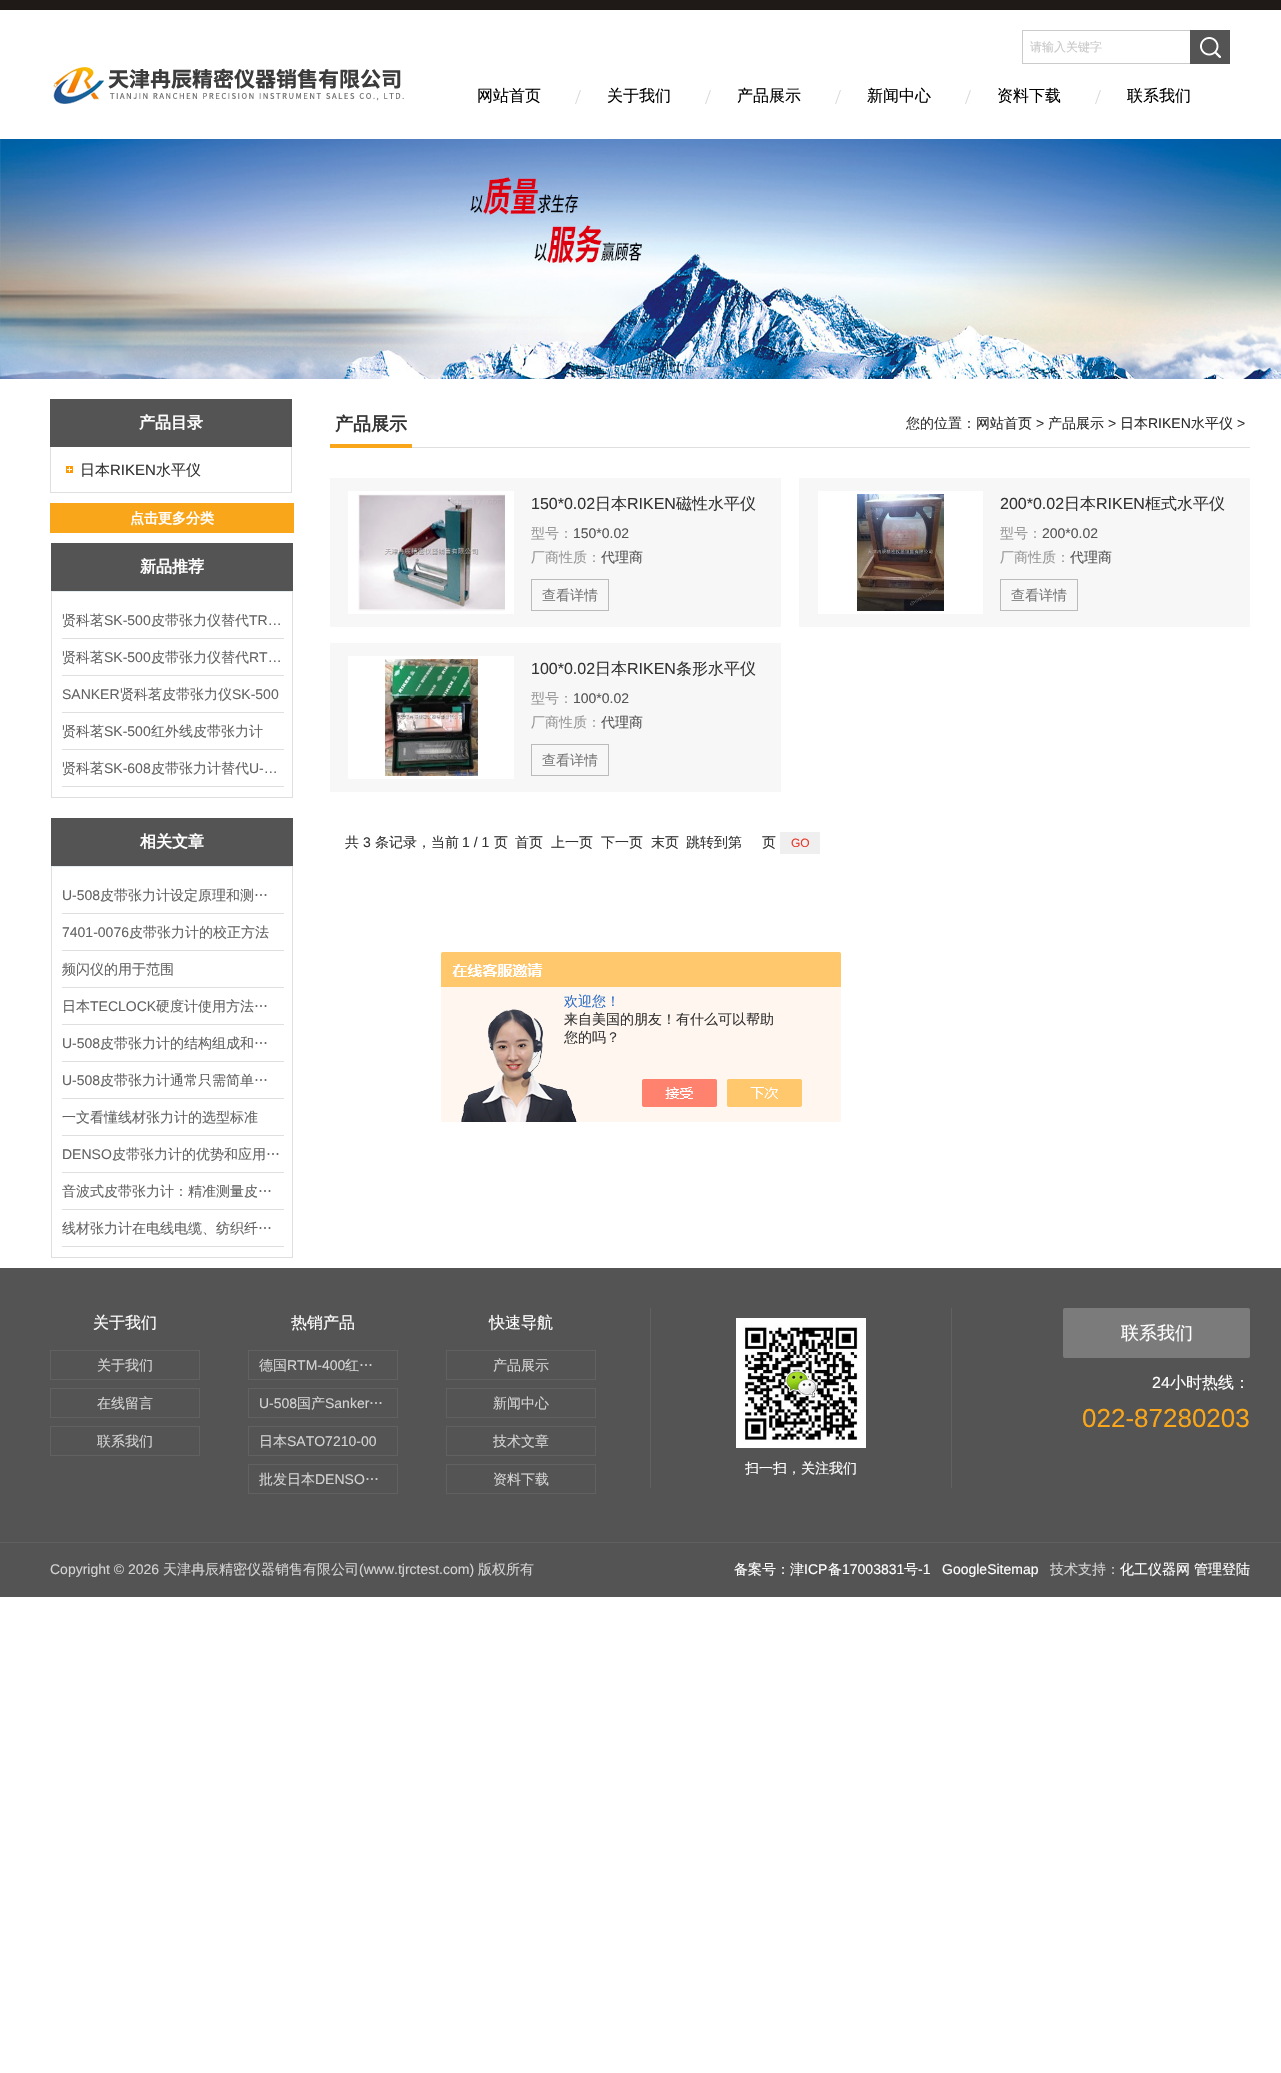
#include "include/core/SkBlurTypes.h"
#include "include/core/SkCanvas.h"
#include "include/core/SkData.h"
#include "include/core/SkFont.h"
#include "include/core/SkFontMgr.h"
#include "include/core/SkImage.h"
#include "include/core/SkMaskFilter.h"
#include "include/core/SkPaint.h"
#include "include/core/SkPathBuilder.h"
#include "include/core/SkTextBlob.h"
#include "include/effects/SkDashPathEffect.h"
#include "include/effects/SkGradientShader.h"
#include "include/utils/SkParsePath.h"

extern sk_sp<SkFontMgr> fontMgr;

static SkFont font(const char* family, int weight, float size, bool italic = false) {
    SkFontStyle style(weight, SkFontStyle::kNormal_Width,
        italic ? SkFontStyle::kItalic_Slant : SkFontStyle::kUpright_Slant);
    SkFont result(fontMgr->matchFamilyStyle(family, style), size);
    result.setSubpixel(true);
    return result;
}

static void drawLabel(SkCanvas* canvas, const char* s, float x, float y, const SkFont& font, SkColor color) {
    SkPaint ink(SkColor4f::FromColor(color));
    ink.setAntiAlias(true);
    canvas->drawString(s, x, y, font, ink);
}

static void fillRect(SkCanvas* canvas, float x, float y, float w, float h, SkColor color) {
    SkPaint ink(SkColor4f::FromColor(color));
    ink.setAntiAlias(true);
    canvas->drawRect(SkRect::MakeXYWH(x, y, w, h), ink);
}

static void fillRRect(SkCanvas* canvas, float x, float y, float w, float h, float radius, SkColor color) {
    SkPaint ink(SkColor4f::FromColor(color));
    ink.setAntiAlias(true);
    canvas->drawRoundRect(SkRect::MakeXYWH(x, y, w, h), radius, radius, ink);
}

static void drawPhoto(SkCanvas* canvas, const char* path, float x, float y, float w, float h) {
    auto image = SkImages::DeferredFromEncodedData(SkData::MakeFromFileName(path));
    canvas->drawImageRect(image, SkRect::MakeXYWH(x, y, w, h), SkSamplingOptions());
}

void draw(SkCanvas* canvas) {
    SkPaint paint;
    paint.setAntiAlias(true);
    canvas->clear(0xFFFFFFFF);
    fillRect(canvas, 0, 0, 1281, 10, 0xFF1F1A17);
    drawPhoto(canvas, "assets/img1.png", 52, 67, 352, 37);
    fillRect(canvas, 1022, 30, 168, 1, 0xFFCBCBCB);
    fillRect(canvas, 1022, 63, 168, 1, 0xFFCBCBCB);
    fillRect(canvas, 1022, 30, 1, 34, 0xFFCBCBCB);
    SkFont font1 = font("WenQuanYi Zen Hei", 500, 12);
    drawLabel(canvas, "请输入关键字", 1030, 51, font1, 0xFFCAC9C9);
    fillRect(canvas, 1190, 30, 40, 34, 0xFF545454);
    drawPhoto(canvas, "assets/img2.png", 1200, 37, 21, 21);
    SkFont font2 = font("WenQuanYi Zen Hei", 500, 16);
    drawLabel(canvas, "网站首页", 477, 101, font2, 0xFF010101);
    drawPhoto(canvas, "assets/img3.png", 575, 90, 6, 14);
    drawLabel(canvas, "关于我们", 607, 101, font2, 0xFF010101);
    drawPhoto(canvas, "assets/img3.png", 705, 90, 6, 14);
    drawLabel(canvas, "产品展示", 737, 101, font2, 0xFF010101);
    drawPhoto(canvas, "assets/img3.png", 835, 90, 6, 14);
    drawLabel(canvas, "新闻中心", 867, 101, font2, 0xFF010101);
    drawPhoto(canvas, "assets/img3.png", 965, 90, 6, 14);
    drawLabel(canvas, "资料下载", 997, 101, font2, 0xFF010101);
    drawPhoto(canvas, "assets/img3.png", 1095, 90, 6, 14);
    drawLabel(canvas, "联系我们", 1127, 101, font2, 0xFF010101);
    drawPhoto(canvas, "assets/img4.png", 0, 139, 1281, 240);
    fillRect(canvas, 50, 399, 242, 48, 0xFF545454);
    SkFont font3 = font("WenQuanYi Zen Hei", 700, 16);
    drawLabel(canvas, "产品目录", 139, 428, font3, 0xFFFFFFFF);
    fillRect(canvas, 291, 447, 1, 46, 0xFFDFDFDF);
    fillRect(canvas, 50, 492, 242, 1, 0xFFDFDFDF);
    fillRect(canvas, 50, 447, 1, 46, 0xFFDFDFDF);
    drawPhoto(canvas, "assets/img5.png", 66, 466, 7, 7);
    SkFont font4 = font("WenQuanYi Zen Hei", 500, 15);
    drawLabel(canvas, "日本", 80, 475, font4, 0xFF343434);
    SkFont font5 = font("Liberation Sans", 400, 15);
    drawLabel(canvas, "RIKEN", 110, 475, font5, 0xFF343434);
    drawLabel(canvas, "水平仪", 156, 475, font4, 0xFF343434);
    fillRect(canvas, 50, 503, 244, 30, 0xFFF9A61A);
    SkFont font6 = font("WenQuanYi Zen Hei", 700, 14);
    drawLabel(canvas, "点击更多分类", 130, 523, font6, 0xFFFFFFFF);
    fillRect(canvas, 51, 543, 242, 48, 0xFF545454);
    drawLabel(canvas, "新品推荐", 140, 572, font3, 0xFFFFFFFF);
    fillRect(canvas, 292, 591, 1, 207, 0xFFDFDFDF);
    fillRect(canvas, 51, 797, 242, 1, 0xFFDFDFDF);
    fillRect(canvas, 51, 591, 1, 207, 0xFFDFDFDF);
    fillRect(canvas, 52, 591, 240, 1, 0xFFE5EDF0);
    fillRect(canvas, 62, 638, 222, 1, 0xFFDFDFDF);
    SkFont font7 = font("WenQuanYi Zen Hei", 500, 14);
    drawLabel(canvas, "贤科茗", 62, 625, font7, 0xFF636363);
    SkFont font8 = font("Liberation Sans", 400, 14);
    drawLabel(canvas, "SK-500", 104, 625, font8, 0xFF636363);
    drawLabel(canvas, "皮带张力仪替代", 151, 625, font7, 0xFF636363);
    drawLabel(canvas, "TR…", 249, 625, font8, 0xFF636363);
    fillRect(canvas, 62, 675, 222, 1, 0xFFDFDFDF);
    drawLabel(canvas, "贤科茗", 62, 662, font7, 0xFF636363);
    drawLabel(canvas, "SK-500", 104, 662, font8, 0xFF636363);
    drawLabel(canvas, "皮带张力仪替代", 151, 662, font7, 0xFF636363);
    drawLabel(canvas, "RT…", 249, 662, font8, 0xFF636363);
    fillRect(canvas, 62, 712, 222, 1, 0xFFDFDFDF);
    drawLabel(canvas, "SANKER", 62, 699, font8, 0xFF636363);
    drawLabel(canvas, "贤科茗皮带张力仪", 120, 699, font7, 0xFF636363);
    drawLabel(canvas, "SK-500", 232, 699, font8, 0xFF636363);
    fillRect(canvas, 62, 749, 222, 1, 0xFFDFDFDF);
    drawLabel(canvas, "贤科茗", 62, 736, font7, 0xFF636363);
    drawLabel(canvas, "SK-500", 104, 736, font8, 0xFF636363);
    drawLabel(canvas, "红外线皮带张力计", 151, 736, font7, 0xFF636363);
    fillRect(canvas, 62, 786, 222, 1, 0xFFDFDFDF);
    drawLabel(canvas, "贤科茗", 62, 773, font7, 0xFF636363);
    drawLabel(canvas, "SK-608", 104, 773, font8, 0xFF636363);
    drawLabel(canvas, "皮带张力计替代", 151, 773, font7, 0xFF636363);
    drawLabel(canvas, "U-…", 249, 773, font8, 0xFF636363);
    fillRect(canvas, 51, 818, 242, 48, 0xFF545454);
    drawLabel(canvas, "相关文章", 140, 847, font3, 0xFFFFFFFF);
    fillRect(canvas, 292, 866, 1, 392, 0xFFDFDFDF);
    fillRect(canvas, 51, 1257, 242, 1, 0xFFDFDFDF);
    fillRect(canvas, 51, 866, 1, 392, 0xFFDFDFDF);
    fillRect(canvas, 52, 866, 240, 1, 0xFFE5EDF0);
    fillRect(canvas, 62, 913, 222, 1, 0xFFDFDFDF);
    drawLabel(canvas, "U-508", 62, 900, font8, 0xFF636363);
    drawLabel(canvas, "皮带张力计设定原理和测…", 100, 900, font7, 0xFF636363);
    fillRect(canvas, 62, 950, 222, 1, 0xFFDFDFDF);
    drawLabel(canvas, "7401-0076", 62, 937, font8, 0xFF636363);
    drawLabel(canvas, "皮带张力计的校正方法", 129, 937, font7, 0xFF636363);
    fillRect(canvas, 62, 987, 222, 1, 0xFFDFDFDF);
    drawLabel(canvas, "频闪仪的用于范围", 62, 974, font7, 0xFF636363);
    fillRect(canvas, 62, 1024, 222, 1, 0xFFDFDFDF);
    drawLabel(canvas, "日本", 62, 1011, font7, 0xFF636363);
    drawLabel(canvas, "TECLOCK", 90, 1011, font8, 0xFF636363);
    drawLabel(canvas, "硬度计使用方法…", 156, 1011, font7, 0xFF636363);
    fillRect(canvas, 62, 1061, 222, 1, 0xFFDFDFDF);
    drawLabel(canvas, "U-508", 62, 1048, font8, 0xFF636363);
    drawLabel(canvas, "皮带张力计的结构组成和…", 100, 1048, font7, 0xFF636363);
    fillRect(canvas, 62, 1098, 222, 1, 0xFFDFDFDF);
    drawLabel(canvas, "U-508", 62, 1085, font8, 0xFF636363);
    drawLabel(canvas, "皮带张力计通常只需简单…", 100, 1085, font7, 0xFF636363);
    fillRect(canvas, 62, 1135, 222, 1, 0xFFDFDFDF);
    drawLabel(canvas, "一文看懂线材张力计的选型标准", 62, 1122, font7, 0xFF636363);
    fillRect(canvas, 62, 1172, 222, 1, 0xFFDFDFDF);
    drawLabel(canvas, "DENSO", 62, 1159, font8, 0xFF636363);
    drawLabel(canvas, "皮带张力计的优势和应用…", 112, 1159, font7, 0xFF636363);
    fillRect(canvas, 62, 1209, 222, 1, 0xFFDFDFDF);
    drawLabel(canvas, "音波式皮带张力计：精准测量皮…", 62, 1196, font7, 0xFF636363);
    fillRect(canvas, 62, 1246, 222, 1, 0xFFDFDFDF);
    drawLabel(canvas, "线材张力计在电线电缆、纺织纤…", 62, 1233, font7, 0xFF636363);
    fillRect(canvas, 412, 447, 838, 1, 0xFFDFDFDF);
    fillRect(canvas, 330, 444, 82, 4, 0xFFF9A61A);
    SkFont font9 = font("WenQuanYi Zen Hei", 700, 18);
    drawLabel(canvas, "产品展示", 335, 430, font9, 0xFF343434);
    drawLabel(canvas, "您的位置：", 906, 428, font7, 0xFF343434);
    drawLabel(canvas, "网站首页", 976, 428, font7, 0xFF2D2D2E);
    drawLabel(canvas, ">", 1036, 428, font8, 0xFF343434);
    drawLabel(canvas, "产品展示", 1048, 428, font7, 0xFF2D2D2E);
    drawLabel(canvas, ">", 1108, 428, font8, 0xFF343434);
    drawLabel(canvas, "日本", 1120, 428, font7, 0xFF2D2D2E);
    drawLabel(canvas, "RIKEN", 1148, 428, font8, 0xFF2D2D2E);
    drawLabel(canvas, "水平仪", 1191, 428, font7, 0xFF2D2D2E);
    drawLabel(canvas, ">", 1237, 428, font8, 0xFF343434);
    fillRect(canvas, 330, 478, 451, 149, 0xFFF7F7F7);
    fillRect(canvas, 348, 491, 166, 123, 0xFFFFFFFF);
    drawPhoto(canvas, "assets/img6.png", 358, 494, 147, 117);
    SkFont font10 = font("Liberation Sans", 400, 16);
    drawLabel(canvas, "150*0.02", 531, 509, font10, 0xFF343434);
    drawLabel(canvas, "日本", 595, 509, font2, 0xFF343434);
    drawLabel(canvas, "RIKEN", 627, 509, font10, 0xFF343434);
    drawLabel(canvas, "磁性水平仪", 676, 509, font2, 0xFF343434);
    drawLabel(canvas, "型号：", 531, 538, font7, 0xFF999999);
    drawLabel(canvas, "150*0.02", 573, 538, font8, 0xFF555555);
    drawLabel(canvas, "厂商性质：", 531, 562, font7, 0xFF999999);
    drawLabel(canvas, "代理商", 601, 562, font7, 0xFF555555);
    paint.setStroke(true);
    paint.setStrokeWidth(1);
    paint.setColor(0xFFBBBBBB);
    canvas->drawRect(SkRect::MakeXYWH(531.5f, 579.5f, 77, 31), paint);
    drawLabel(canvas, "查看详情", 542, 600, font7, 0xFF787878);
    fillRect(canvas, 799, 478, 451, 149, 0xFFF7F7F7);
    fillRect(canvas, 818, 491, 165, 123, 0xFFFFFFFF);
    drawPhoto(canvas, "assets/img7.png", 857, 494, 87, 117);
    drawLabel(canvas, "200*0.02", 1000, 509, font10, 0xFF343434);
    drawLabel(canvas, "日本", 1064, 509, font2, 0xFF343434);
    drawLabel(canvas, "RIKEN", 1096, 509, font10, 0xFF343434);
    drawLabel(canvas, "框式水平仪", 1145, 509, font2, 0xFF343434);
    drawLabel(canvas, "型号：", 1000, 538, font7, 0xFF999999);
    drawLabel(canvas, "200*0.02", 1042, 538, font8, 0xFF555555);
    drawLabel(canvas, "厂商性质：", 1000, 562, font7, 0xFF999999);
    drawLabel(canvas, "代理商", 1070, 562, font7, 0xFF555555);
    canvas->drawRect(SkRect::MakeXYWH(1000.5f, 579.5f, 77, 31), paint);
    drawLabel(canvas, "查看详情", 1011, 600, font7, 0xFF787878);
    fillRect(canvas, 330, 643, 451, 149, 0xFFF7F7F7);
    fillRect(canvas, 348, 656, 166, 123, 0xFFFFFFFF);
    drawPhoto(canvas, "assets/img8.png", 385, 659, 93, 117);
    drawLabel(canvas, "100*0.02", 531, 674, font10, 0xFF343434);
    drawLabel(canvas, "日本", 595, 674, font2, 0xFF343434);
    drawLabel(canvas, "RIKEN", 627, 674, font10, 0xFF343434);
    drawLabel(canvas, "条形水平仪", 676, 674, font2, 0xFF343434);
    drawLabel(canvas, "型号：", 531, 703, font7, 0xFF999999);
    drawLabel(canvas, "100*0.02", 573, 703, font8, 0xFF555555);
    drawLabel(canvas, "厂商性质：", 531, 727, font7, 0xFF999999);
    drawLabel(canvas, "代理商", 601, 727, font7, 0xFF555555);
    canvas->drawRect(SkRect::MakeXYWH(531.5f, 744.5f, 77, 31), paint);
    drawLabel(canvas, "查看详情", 542, 765, font7, 0xFF787878);
    drawLabel(canvas, "共", 345, 847, font7, 0xFF343434);
    drawLabel(canvas, "3", 363, 847, font8, 0xFF343434);
    drawLabel(canvas, "条记录，当前", 375, 847, font7, 0xFF343434);
    drawLabel(canvas, "1 / 1", 462, 847, font8, 0xFF343434);
    drawLabel(canvas, "页", 494, 847, font7, 0xFF343434);
    drawLabel(canvas, "首页", 515, 847, font7, 0xFF343434);
    drawLabel(canvas, "上一页", 551, 847, font7, 0xFF343434);
    drawLabel(canvas, "下一页", 601, 847, font7, 0xFF343434);
    drawLabel(canvas, "末页", 651, 847, font7, 0xFF343434);
    drawLabel(canvas, "跳转到第", 686, 847, font7, 0xFF343434);
    drawLabel(canvas, "页", 762, 847, font7, 0xFF343434);
    fillRect(canvas, 780, 832, 40, 22, 0xFFEFEFEF);
    SkFont font11 = font("Liberation Sans", 400, 12);
    drawLabel(canvas, "GO", 791, 847, font11, 0xFFE6392B);
    drawPhoto(canvas, "assets/img9.png", 441, 952, 400, 170);
    drawLabel(canvas, "欢迎您！", 564, 1006, font7, 0xFF2E6EC6);
    drawLabel(canvas, "来自美国的朋友！有什么可以帮助", 564, 1024, font7, 0xFF343434);
    drawLabel(canvas, "您的吗？", 564, 1042, font7, 0xFF343434);
    fillRect(canvas, 0, 1268, 1281, 274, 0xFF545454);
    drawLabel(canvas, "关于我们", 93, 1328, font2, 0xFFFFFFFF);
    paint.setColor(0xFF616161);
    canvas->drawRect(SkRect::MakeXYWH(50.5f, 1350.5f, 149, 29), paint);
    drawLabel(canvas, "关于我们", 97, 1370, font7, 0xFFD3D3D3);
    canvas->drawRect(SkRect::MakeXYWH(50.5f, 1388.5f, 149, 29), paint);
    drawLabel(canvas, "在线留言", 97, 1408, font7, 0xFFD3D3D3);
    canvas->drawRect(SkRect::MakeXYWH(50.5f, 1426.5f, 149, 29), paint);
    drawLabel(canvas, "联系我们", 97, 1446, font7, 0xFFD3D3D3);
    drawLabel(canvas, "热销产品", 291, 1328, font2, 0xFFFFFFFF);
    canvas->drawRect(SkRect::MakeXYWH(248.5f, 1350.5f, 149, 29), paint);
    drawLabel(canvas, "德国", 259, 1370, font7, 0xFFD3D3D3);
    drawLabel(canvas, "RTM-400", 287, 1370, font8, 0xFFD3D3D3);
    drawLabel(canvas, "红…", 345, 1370, font7, 0xFFD3D3D3);
    canvas->drawRect(SkRect::MakeXYWH(248.5f, 1388.5f, 149, 29), paint);
    drawLabel(canvas, "U-508", 259, 1408, font8, 0xFFD3D3D3);
    drawLabel(canvas, "国产", 297, 1408, font7, 0xFFD3D3D3);
    drawLabel(canvas, "Sanker", 325, 1408, font8, 0xFFD3D3D3);
    drawLabel(canvas, "…", 369, 1408, font7, 0xFFD3D3D3);
    canvas->drawRect(SkRect::MakeXYWH(248.5f, 1426.5f, 149, 29), paint);
    drawLabel(canvas, "日本", 259, 1446, font7, 0xFFD3D3D3);
    drawLabel(canvas, "SATO7210-00", 287, 1446, font8, 0xFFD3D3D3);
    canvas->drawRect(SkRect::MakeXYWH(248.5f, 1464.5f, 149, 29), paint);
    drawLabel(canvas, "批发日本", 259, 1484, font7, 0xFFD3D3D3);
    drawLabel(canvas, "DENSO", 315, 1484, font8, 0xFFD3D3D3);
    drawLabel(canvas, "…", 365, 1484, font7, 0xFFD3D3D3);
    drawLabel(canvas, "快速导航", 489, 1328, font2, 0xFFFFFFFF);
    canvas->drawRect(SkRect::MakeXYWH(446.5f, 1350.5f, 149, 29), paint);
    drawLabel(canvas, "产品展示", 493, 1370, font7, 0xFFD3D3D3);
    canvas->drawRect(SkRect::MakeXYWH(446.5f, 1388.5f, 149, 29), paint);
    drawLabel(canvas, "新闻中心", 493, 1408, font7, 0xFFD3D3D3);
    canvas->drawRect(SkRect::MakeXYWH(446.5f, 1426.5f, 149, 29), paint);
    drawLabel(canvas, "技术文章", 493, 1446, font7, 0xFFD3D3D3);
    canvas->drawRect(SkRect::MakeXYWH(446.5f, 1464.5f, 149, 29), paint);
    drawLabel(canvas, "资料下载", 493, 1484, font7, 0xFFD3D3D3);
    fillRRect(canvas, 1063, 1308, 187, 50, 2, 0xFF7B7B7B);
    SkFont font12 = font("WenQuanYi Zen Hei", 500, 18);
    drawLabel(canvas, "联系我们", 1121, 1339, font12, 0xFFFFFFFF);
    drawLabel(canvas, "24", 1152, 1388, font10, 0xFFFFFFFF);
    drawLabel(canvas, "小时热线：", 1170, 1388, font2, 0xFFFFFFFF);
    SkFont font13 = font("Liberation Sans", 400, 26);
    drawLabel(canvas, "022-87280203", 1082, 1427, font13, 0xFFF9A61A);
    fillRect(canvas, 951, 1308, 1, 180, 0xFF616161);
    fillRect(canvas, 650, 1308, 1, 180, 0xFF616161);
    drawPhoto(canvas, "assets/img10.png", 736, 1318, 130, 130);
    drawLabel(canvas, "扫一扫，关注我们", 745, 1473, font7, 0xFFFFFFFF);
    fillRect(canvas, 0, 1543, 1281, 54, 0xFF545454);
    fillRect(canvas, 0, 1542, 1281, 1, 0xFF616161);
    drawLabel(canvas, "Copyright © 2026", 50, 1574, font8, 0xFFD3D3D3);
    drawLabel(canvas, "天津冉辰精密仪器销售有限公司", 163, 1574, font7, 0xFFD3D3D3);
    drawLabel(canvas, "(www.tjrctest.com)", 359, 1574, font8, 0xFFD3D3D3);
    drawLabel(canvas, "版权所有", 478, 1574, font7, 0xFFD3D3D3);
    drawLabel(canvas, "备案号：津", 734, 1574, font7, 0xFFFFFFFF);
    drawLabel(canvas, "ICP", 804, 1574, font8, 0xFFFFFFFF);
    drawLabel(canvas, "备", 828, 1574, font7, 0xFFFFFFFF);
    drawLabel(canvas, "17003831", 842, 1574, font8, 0xFFFFFFFF);
    drawLabel(canvas, "号", 904, 1574, font7, 0xFFFFFFFF);
    drawLabel(canvas, "-1", 918, 1574, font8, 0xFFFFFFFF);
    drawLabel(canvas, "GoogleSitemap", 942, 1574, font8, 0xFFFFFFFF);
    drawLabel(canvas, "技术支持：", 1050, 1574, font7, 0xFFD3D3D3);
    drawLabel(canvas, "化工仪器网", 1120, 1574, font7, 0xFFFFFFFF);
    drawLabel(canvas, "管理登陆", 1194, 1574, font7, 0xFFFFFFFF);
}
